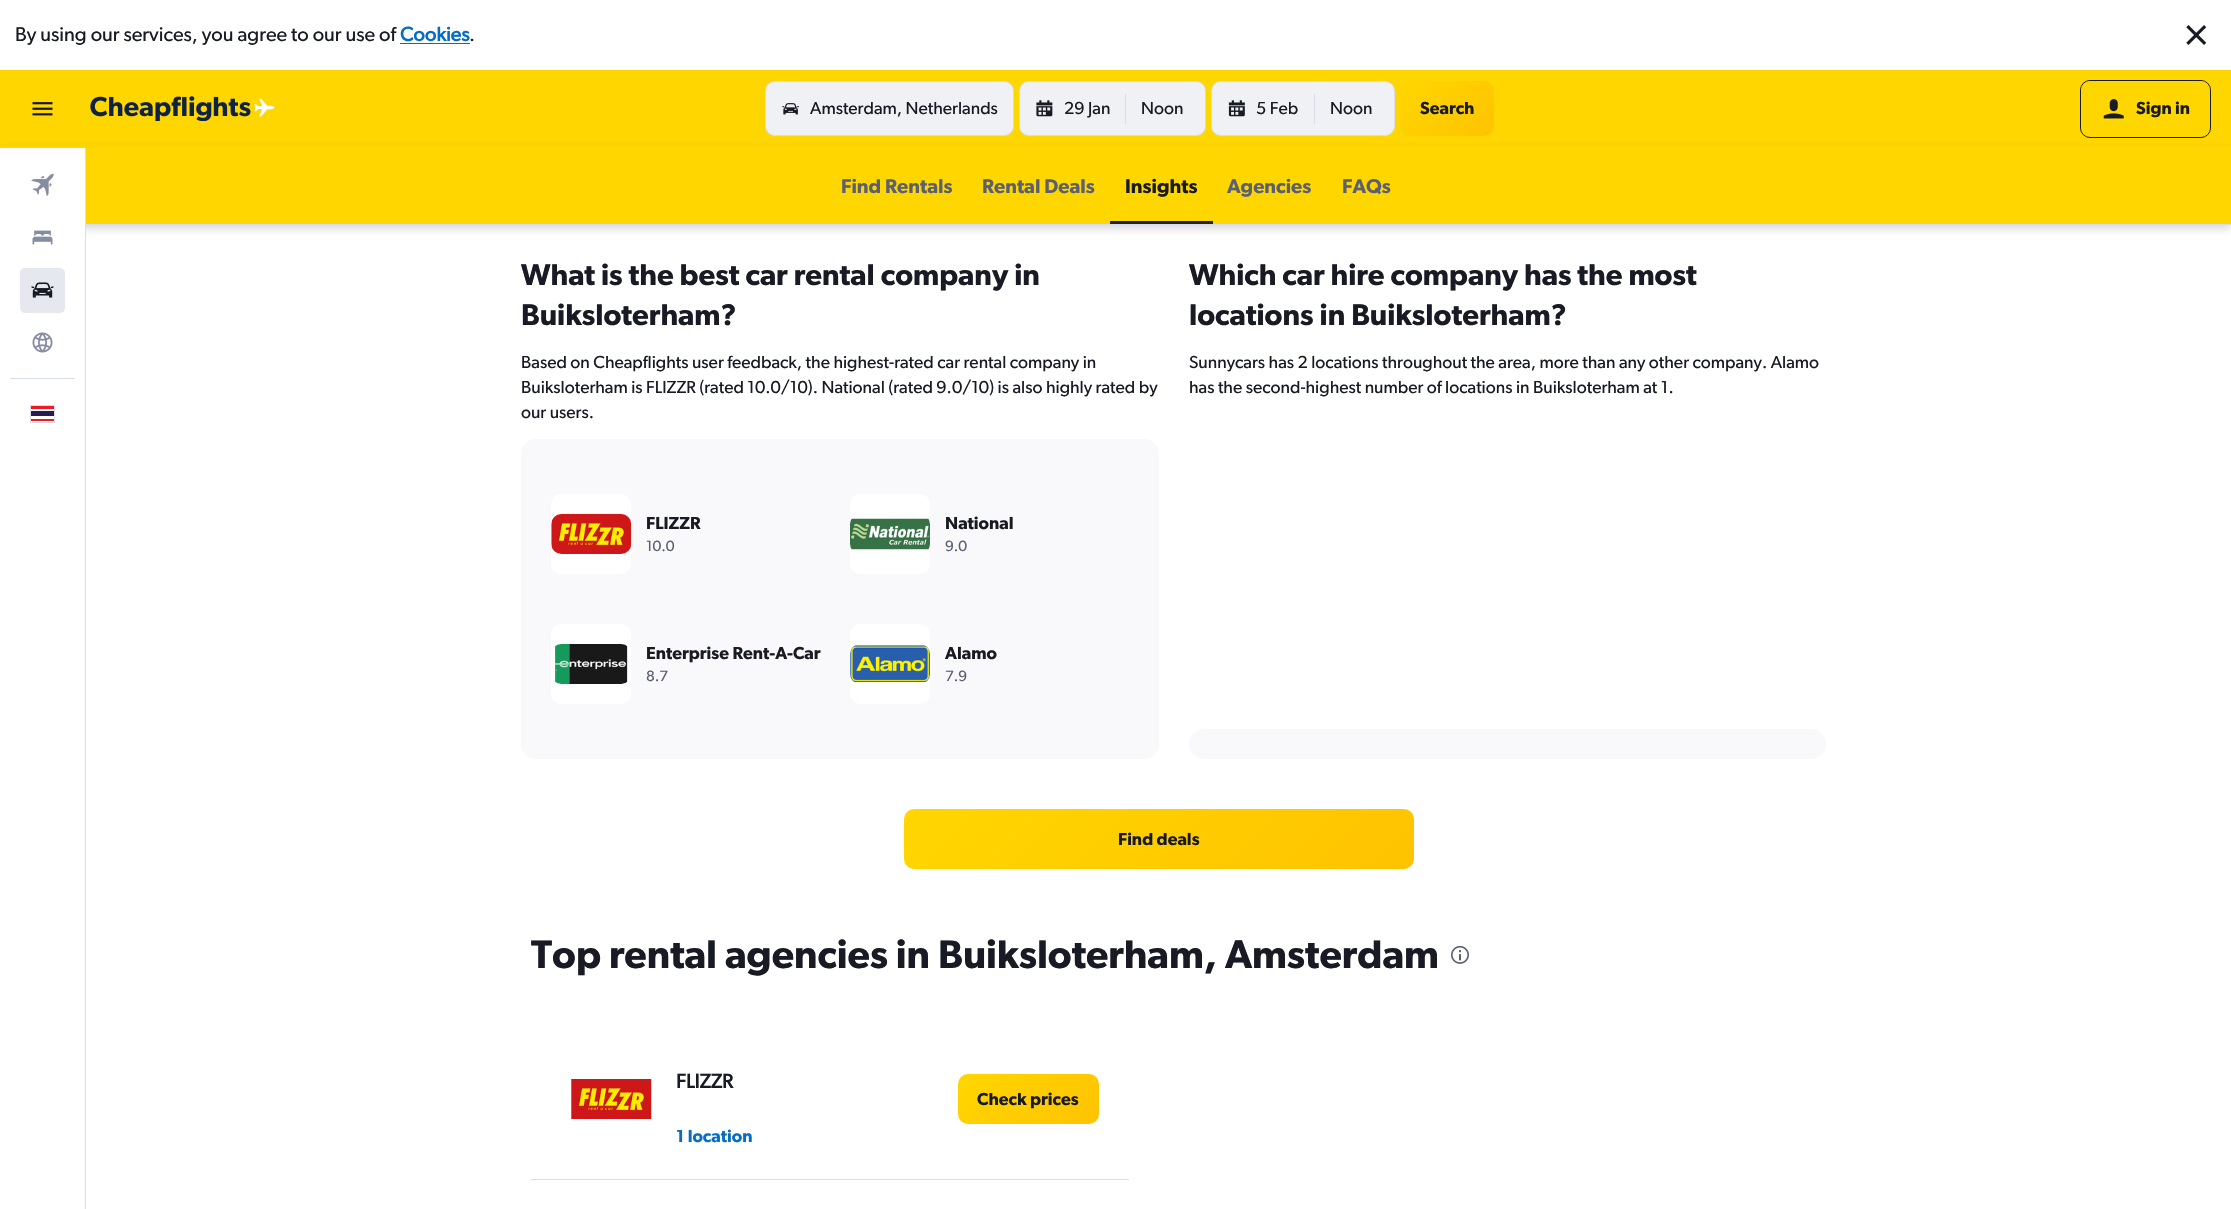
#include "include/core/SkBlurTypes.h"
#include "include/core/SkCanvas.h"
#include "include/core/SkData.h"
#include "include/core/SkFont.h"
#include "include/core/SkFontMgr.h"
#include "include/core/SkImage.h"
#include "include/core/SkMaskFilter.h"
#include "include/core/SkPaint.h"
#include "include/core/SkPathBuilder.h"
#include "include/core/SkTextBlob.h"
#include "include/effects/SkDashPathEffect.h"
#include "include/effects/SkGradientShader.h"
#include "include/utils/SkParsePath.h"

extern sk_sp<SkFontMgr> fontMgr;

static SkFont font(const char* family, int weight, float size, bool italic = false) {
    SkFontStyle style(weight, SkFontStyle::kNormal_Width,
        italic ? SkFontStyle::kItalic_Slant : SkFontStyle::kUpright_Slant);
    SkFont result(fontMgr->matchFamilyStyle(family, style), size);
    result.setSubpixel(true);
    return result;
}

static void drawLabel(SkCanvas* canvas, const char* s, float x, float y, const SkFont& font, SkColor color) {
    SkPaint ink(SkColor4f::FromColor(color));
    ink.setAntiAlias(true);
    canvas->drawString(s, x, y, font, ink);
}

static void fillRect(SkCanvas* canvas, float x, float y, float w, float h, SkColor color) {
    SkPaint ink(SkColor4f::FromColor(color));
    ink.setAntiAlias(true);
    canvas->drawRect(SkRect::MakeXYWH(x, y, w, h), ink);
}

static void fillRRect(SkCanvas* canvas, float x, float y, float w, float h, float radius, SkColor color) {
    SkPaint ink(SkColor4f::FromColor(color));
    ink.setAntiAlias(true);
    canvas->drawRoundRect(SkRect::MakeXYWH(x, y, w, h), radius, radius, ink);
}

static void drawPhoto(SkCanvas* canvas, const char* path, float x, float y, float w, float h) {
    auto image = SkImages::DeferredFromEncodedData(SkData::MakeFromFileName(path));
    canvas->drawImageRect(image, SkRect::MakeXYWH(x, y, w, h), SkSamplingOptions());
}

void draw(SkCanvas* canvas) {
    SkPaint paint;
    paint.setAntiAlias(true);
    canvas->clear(0xFFFFFFFF);
    SkFont font1 = font("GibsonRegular", 400, 20);
    drawLabel(canvas, "By using our services, you agree to our use of", 15, 41, font1, 0xFF191B24);
    SkFont font2 = font("GibsonRegular", 700, 20);
    drawLabel(canvas, "Cookies", 400, 41, font2, 0xFF066DC7);
    drawLabel(canvas, ".", 469, 41, font1, 0xFF191B24);
    fillRect(canvas, 400, 43, 70, 1, 0xFF066DC7);
    drawPhoto(canvas, "assets/img1.png", 2186, 25, 21, 20);
    fillRect(canvas, 0, 70, 2231, 76, 0xFFFFD600);
    drawPhoto(canvas, "assets/img2.png", 32, 102, 21, 14);
    drawPhoto(canvas, "assets/img3.png", 90, 96, 185, 25);
    paint.setColor(0xFFF0F1F5);
    canvas->drawRoundRect(SkRect::MakeXYWH(765.5f, 81.5f, 248, 54), 9.5f, 9.5f, paint);
    paint.setStroke(true);
    paint.setStrokeWidth(1);
    paint.setColor(0xFFD9DDE8);
    canvas->drawRoundRect(SkRect::MakeXYWH(765.5f, 81.5f, 248, 54), 9.5f, 9.5f, paint);
    drawPhoto(canvas, "assets/img4.png", 782, 103, 17, 12);
    SkFont font3 = font("GibsonRegular", 400, 17.5f);
    drawLabel(canvas, "Amsterdam, Netherlands", 810, 114, font3, 0xFF191B24);
    paint.setStroke(false);
    paint.setColor(0xFFF0F1F5);
    canvas->drawRoundRect(SkRect::MakeXYWH(1019.5f, 81.5f, 186, 54), 9.5f, 9.5f, paint);
    paint.setStroke(true);
    paint.setColor(0xFFD9DDE8);
    canvas->drawRoundRect(SkRect::MakeXYWH(1019.5f, 81.5f, 186, 54), 9.5f, 9.5f, paint);
    drawPhoto(canvas, "assets/img5.png", 1036, 100, 17, 17);
    drawLabel(canvas, "29 Jan", 1064, 114, font3, 0xFF191B24);
    fillRect(canvas, 1125, 94, 1, 30, 0xFFD9DDE8);
    drawLabel(canvas, "Noon", 1141, 114, font3, 0xFF191B24);
    paint.setStroke(false);
    paint.setColor(0xFFF0F1F5);
    canvas->drawRoundRect(SkRect::MakeXYWH(1211.5f, 81.5f, 183, 54), 9.5f, 9.5f, paint);
    paint.setStroke(true);
    paint.setColor(0xFFD9DDE8);
    canvas->drawRoundRect(SkRect::MakeXYWH(1211.5f, 81.5f, 183, 54), 9.5f, 9.5f, paint);
    drawPhoto(canvas, "assets/img6.png", 1228, 100, 17, 17);
    drawLabel(canvas, "5 Feb", 1256, 114, font3, 0xFF191B24);
    fillRect(canvas, 1314, 94, 1, 30, 0xFFD9DDE8);
    drawLabel(canvas, "Noon", 1330, 114, font3, 0xFF191B24);
    paint.setStroke(false);
    {
        const SkColor colors[] = {0xFFFFD600, 0xFFFFC300};
        const float stops[] = {0, 1};
        const SkPoint ends[] = {{1410, 72}, {1484, 146}};
        paint.setShader(SkGradientShader::MakeLinear(ends, colors, stops, 2, SkTileMode::kClamp));
        paint.setAlpha(255);
    }
    canvas->drawRoundRect(SkRect::MakeXYWH(1400, 81, 94, 55), 10, 10, paint);
    SkFont font4 = font("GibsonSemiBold", 600, 17.5f);
    drawLabel(canvas, "Search", 1420, 114, font4, 0xFF191B24);
    paint.setStroke(true);
    paint.setShader(nullptr);
    paint.setColor(0xFF191B24);
    canvas->drawRoundRect(SkRect::MakeXYWH(2080.5f, 80.5f, 130, 57), 9.5f, 9.5f, paint);
    fillRRect(canvas, 2081, 81, 129, 55, 10, 0xFFFFD600);
    drawPhoto(canvas, "assets/img7.png", 2103, 99, 21, 20);
    drawLabel(canvas, "Sign in", 2136, 114, font4, 0xFF191B24);
    paint.setStroke(false);
    paint.setColor(0x29191B24);
    paint.setMaskFilter(SkMaskFilter::MakeBlur(kNormal_SkBlurStyle, 4));
    canvas->drawRect(SkRect::MakeXYWH(0, 150, 2231, 79), paint);
    paint.setMaskFilter(nullptr);
    fillRect(canvas, 0, 146, 2231, 78, 0xFFFFD600);
    fillRect(canvas, 0, 148, 85, 87, 0xFFFFFFFF);
    fillRect(canvas, 85, 148, 1, 1061, 0xFFD9DDE8);
    drawPhoto(canvas, "assets/img8.png", 31, 173, 23, 24);
    drawPhoto(canvas, "assets/img9.png", 32, 230, 21, 15);
    fillRRect(canvas, 20, 268, 45, 45, 5, 0xFFE6E8EF);
    drawPhoto(canvas, "assets/img10.png", 31, 282, 23, 16);
    drawPhoto(canvas, "assets/img11.png", 32, 332, 21, 21);
    fillRect(canvas, 10, 378, 65, 1, 0xFFD9DDE8);
    paint.setStroke(true);
    paint.setColor(0xFFD9DDE8);
    canvas->drawRect(SkRect::MakeXYWH(30.5f, 405.5f, 24, 17), paint);
    fillRect(canvas, 31, 406, 23, 15, 0xFFED1C24);
    fillRect(canvas, 31, 409, 23, 10, 0xFFFFFFFF);
    fillRect(canvas, 31, 411, 23, 5, 0xFF241D4F);
    fillRect(canvas, 86, 224, 2145, 1, 0xFFD9DDE8);
    SkFont font5 = font("GibsonSemiBold", 600, 20);
    drawLabel(canvas, "Find Rentals", 841, 193, font5, 0xFF5A6072);
    drawLabel(canvas, "Rental Deals", 982, 193, font5, 0xFF5A6072);
    fillRect(canvas, 1110, 221, 103, 3, 0xFF1F232D);
    drawLabel(canvas, "Insights", 1125, 193, font5, 0xFF191B24);
    drawLabel(canvas, "Agencies", 1227, 193, font5, 0xFF5A6072);
    drawLabel(canvas, "FAQs", 1342, 193, font5, 0xFF5A6072);
    SkFont font6 = font("GibsonSemiBold", 600, 30);
    drawLabel(canvas, "What is the best car rental company in", 521, 285, font6, 0xFF191B24);
    drawLabel(canvas, "Buiksloterham?", 521, 325, font6, 0xFF191B24);
    drawLabel(canvas, "Based on Cheapflights user feedback, the highest-rated car rental company in", 521, 368, font3, 0xFF191B24);
    drawLabel(canvas, "Buiksloterham is FLIZZR (rated 10.0/10). National (rated 9.0/10) is also highly rated by", 521, 393, font3, 0xFF191B24);
    drawLabel(canvas, "our users.", 521, 418, font3, 0xFF191B24);
    fillRRect(canvas, 521, 439, 638, 320, 15, 0xFFF9F9FB);
    fillRRect(canvas, 551, 494, 80, 80, 10, 0xFFFFFFFF);
    drawPhoto(canvas, "assets/img12.png", 551, 514, 81, 40);
    drawLabel(canvas, "FLIZZR", 646, 529, font4, 0xFF191B24);
    SkFont font7 = font("GibsonRegular", 400, 15);
    drawLabel(canvas, "10.0", 646, 551, font7, 0xFF5A6072);
    fillRRect(canvas, 850, 494, 80, 80, 10, 0xFFFFFFFF);
    drawPhoto(canvas, "assets/img13.png", 850, 518, 80, 32);
    drawLabel(canvas, "National", 945, 529, font4, 0xFF191B24);
    drawLabel(canvas, "9.0", 945, 551, font7, 0xFF5A6072);
    fillRRect(canvas, 551, 624, 80, 80, 10, 0xFFFFFFFF);
    drawPhoto(canvas, "assets/img14.png", 555, 644, 73, 40);
    drawLabel(canvas, "Enterprise Rent-A-Car", 646, 659, font4, 0xFF191B24);
    drawLabel(canvas, "8.7", 646, 681, font7, 0xFF5A6072);
    fillRRect(canvas, 850, 624, 80, 80, 10, 0xFFFFFFFF);
    drawPhoto(canvas, "assets/img15.png", 850, 645, 80, 37);
    drawLabel(canvas, "Alamo", 945, 659, font4, 0xFF191B24);
    drawLabel(canvas, "7.9", 945, 681, font7, 0xFF5A6072);
    drawLabel(canvas, "Which car hire company has the most", 1189, 285, font6, 0xFF191B24);
    drawLabel(canvas, "locations in Buiksloterham?", 1189, 325, font6, 0xFF191B24);
    drawLabel(canvas, "Sunnycars has 2 locations throughout the area, more than any other company. Alamo", 1189, 368, font3, 0xFF191B24);
    drawLabel(canvas, "has the second-highest number of locations in Buiksloterham at 1.", 1189, 393, font3, 0xFF191B24);
    fillRRect(canvas, 1189, 729, 637, 30, 15, 0xFFF9F9FB);
    paint.setStroke(false);
    {
        const SkColor colors[] = {0xFFFFD600, 0xFFFFC300};
        const float stops[] = {0, 1};
        const SkPoint ends[] = {{1016, 696}, {1301, 981}};
        paint.setShader(SkGradientShader::MakeLinear(ends, colors, stops, 2, SkTileMode::kClamp));
        paint.setAlpha(255);
    }
    canvas->drawRoundRect(SkRect::MakeXYWH(904, 809, 510, 60), 10, 10, paint);
    drawLabel(canvas, "Find deals", 1118, 845, font4, 0xFF191B24);
    SkFont font8 = font("GibsonSemiBold", 600, 40);
    drawLabel(canvas, "Top rental agencies in Buiksloterham, Amsterdam", 531, 968, font8, 0xFF191B24);
    drawPhoto(canvas, "assets/img16.png", 1451, 945, 18, 19);
    fillRect(canvas, 531, 1179, 598, 1, 0xFFD9DDE8);
    drawPhoto(canvas, "assets/img17.png", 571, 1079, 81, 40);
    drawLabel(canvas, "FLIZZR", 676, 1088, font2, 0xFF191B24);
    drawLabel(canvas, "1 location", 676, 1142, font4, 0xFF066DC7);
    {
        const SkColor colors[] = {0xFFFFD600, 0xFFFFC300};
        const float stops[] = {0, 1};
        const SkPoint ends[] = {{980, 1051}, {1076, 1147}};
        paint.setShader(SkGradientShader::MakeLinear(ends, colors, stops, 2, SkTileMode::kClamp));
        paint.setAlpha(255);
    }
    canvas->drawRoundRect(SkRect::MakeXYWH(958, 1074, 141, 50), 10, 10, paint);
    drawLabel(canvas, "Check prices", 977, 1105, font4, 0xFF191B24);
}
